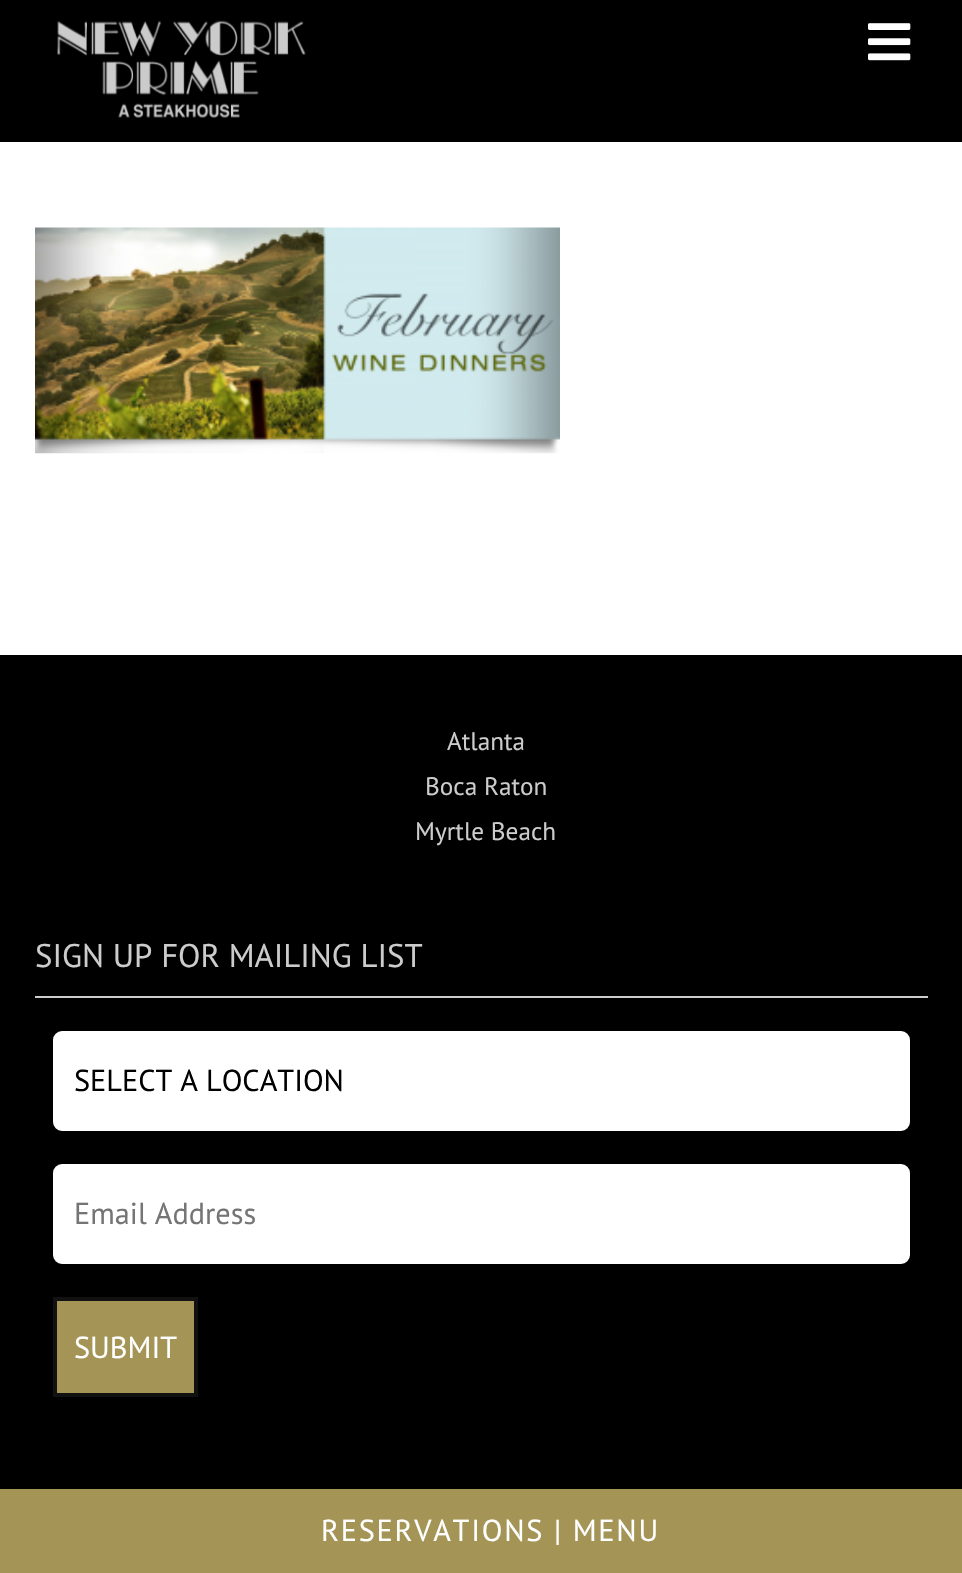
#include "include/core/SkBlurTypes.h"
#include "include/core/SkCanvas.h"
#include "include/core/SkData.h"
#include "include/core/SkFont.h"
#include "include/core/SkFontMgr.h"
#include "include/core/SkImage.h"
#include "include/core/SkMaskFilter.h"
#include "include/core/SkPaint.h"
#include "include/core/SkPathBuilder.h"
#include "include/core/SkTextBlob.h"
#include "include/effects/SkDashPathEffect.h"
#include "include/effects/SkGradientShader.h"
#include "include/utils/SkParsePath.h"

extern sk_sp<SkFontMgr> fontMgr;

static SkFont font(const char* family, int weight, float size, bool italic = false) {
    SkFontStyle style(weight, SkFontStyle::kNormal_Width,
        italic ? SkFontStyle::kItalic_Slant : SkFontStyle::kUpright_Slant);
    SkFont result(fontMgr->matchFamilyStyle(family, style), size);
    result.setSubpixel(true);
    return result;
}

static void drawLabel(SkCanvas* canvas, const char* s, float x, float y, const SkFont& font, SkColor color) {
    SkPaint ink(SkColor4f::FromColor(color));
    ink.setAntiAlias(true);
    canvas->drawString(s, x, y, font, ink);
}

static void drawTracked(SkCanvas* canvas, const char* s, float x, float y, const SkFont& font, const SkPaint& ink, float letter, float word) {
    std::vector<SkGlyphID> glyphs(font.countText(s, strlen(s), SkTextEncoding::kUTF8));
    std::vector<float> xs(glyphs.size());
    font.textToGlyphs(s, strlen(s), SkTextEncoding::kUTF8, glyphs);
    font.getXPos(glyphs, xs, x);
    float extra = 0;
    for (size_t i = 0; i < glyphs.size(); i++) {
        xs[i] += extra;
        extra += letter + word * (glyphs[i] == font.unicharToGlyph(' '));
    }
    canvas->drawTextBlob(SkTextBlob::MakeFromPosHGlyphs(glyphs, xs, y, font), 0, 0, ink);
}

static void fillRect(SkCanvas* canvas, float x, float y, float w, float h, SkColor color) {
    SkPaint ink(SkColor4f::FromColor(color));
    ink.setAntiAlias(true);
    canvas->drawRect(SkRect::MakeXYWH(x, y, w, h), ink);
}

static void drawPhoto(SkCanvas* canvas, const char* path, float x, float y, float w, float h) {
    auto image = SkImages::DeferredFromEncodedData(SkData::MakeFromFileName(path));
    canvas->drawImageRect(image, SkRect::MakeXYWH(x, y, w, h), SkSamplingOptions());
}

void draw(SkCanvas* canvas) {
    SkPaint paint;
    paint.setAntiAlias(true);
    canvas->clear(0xFFFFFFFF);
    fillRect(canvas, 0, 0, 962, 142, 0xFF000000);
    drawPhoto(canvas, "assets/img1.png", 57, 20, 249, 98);
    drawPhoto(canvas, "assets/img2.png", 868, 23, 43, 38);
    drawPhoto(canvas, "assets/img3.png", 35, 227, 525, 227);
    fillRect(canvas, 0, 655, 962, 834, 0xFF000000);
    SkFont font1 = font("PT Sans", 400, 25.25f);
    drawLabel(canvas, "Atlanta", 447, 750, font1, 0xFFCCCCCC);
    drawLabel(canvas, "Boca Raton", 425, 795, font1, 0xFFCCCCCC);
    drawLabel(canvas, "Myrtle Beach", 415, 840, font1, 0xFFCCCCCC);
    fillRect(canvas, 35, 996, 893, 2, 0xFFCCCCCC);
    SkFont font2 = font("PT Sans", 400, 32.75f);
    drawLabel(canvas, "SIGN UP FOR MAILING LIST", 35, 967, font2, 0xFFCCCCCC);
    paint.setColor(0xFFFFFFFF);
    canvas->drawRoundRect(SkRect::MakeXYWH(55, 1033, 853, 96), 7, 7, paint);
    paint.setStroke(true);
    paint.setStrokeWidth(4);
    canvas->drawRoundRect(SkRect::MakeXYWH(55, 1033, 853, 96), 7, 7, paint);
    SkFont font3 = font("PT Sans", 400, 30.25f);
    drawLabel(canvas, "SELECT A LOCATION", 74, 1091, font3, 0xFF000000);
    paint.setStroke(false);
    canvas->drawRoundRect(SkRect::MakeXYWH(55, 1166, 853, 96), 7, 7, paint);
    paint.setStroke(true);
    canvas->drawRoundRect(SkRect::MakeXYWH(55, 1166, 853, 96), 7, 7, paint);
    drawLabel(canvas, "Email Address", 74, 1224, font3, 0xFF757575);
    paint.setStroke(false);
    paint.setColor(0xFFA49557);
    canvas->drawRect(SkRect::MakeXYWH(55, 1299, 141, 96), paint);
    paint.setStroke(true);
    paint.setColor(0xFF111111);
    canvas->drawRect(SkRect::MakeXYWH(55, 1299, 141, 96), paint);
    drawLabel(canvas, "SUBMIT", 74, 1358, font3, 0xFFFFFFFF);
    fillRect(canvas, 0, 1489, 962, 84, 0xFFA49557);
    paint.setStroke(false);
    paint.setColor(0xFFFFFFFF);
    drawTracked(canvas, "RESERVATIONS | MENU", 321, 1541, font3, paint, 1.75f, 0);
}
